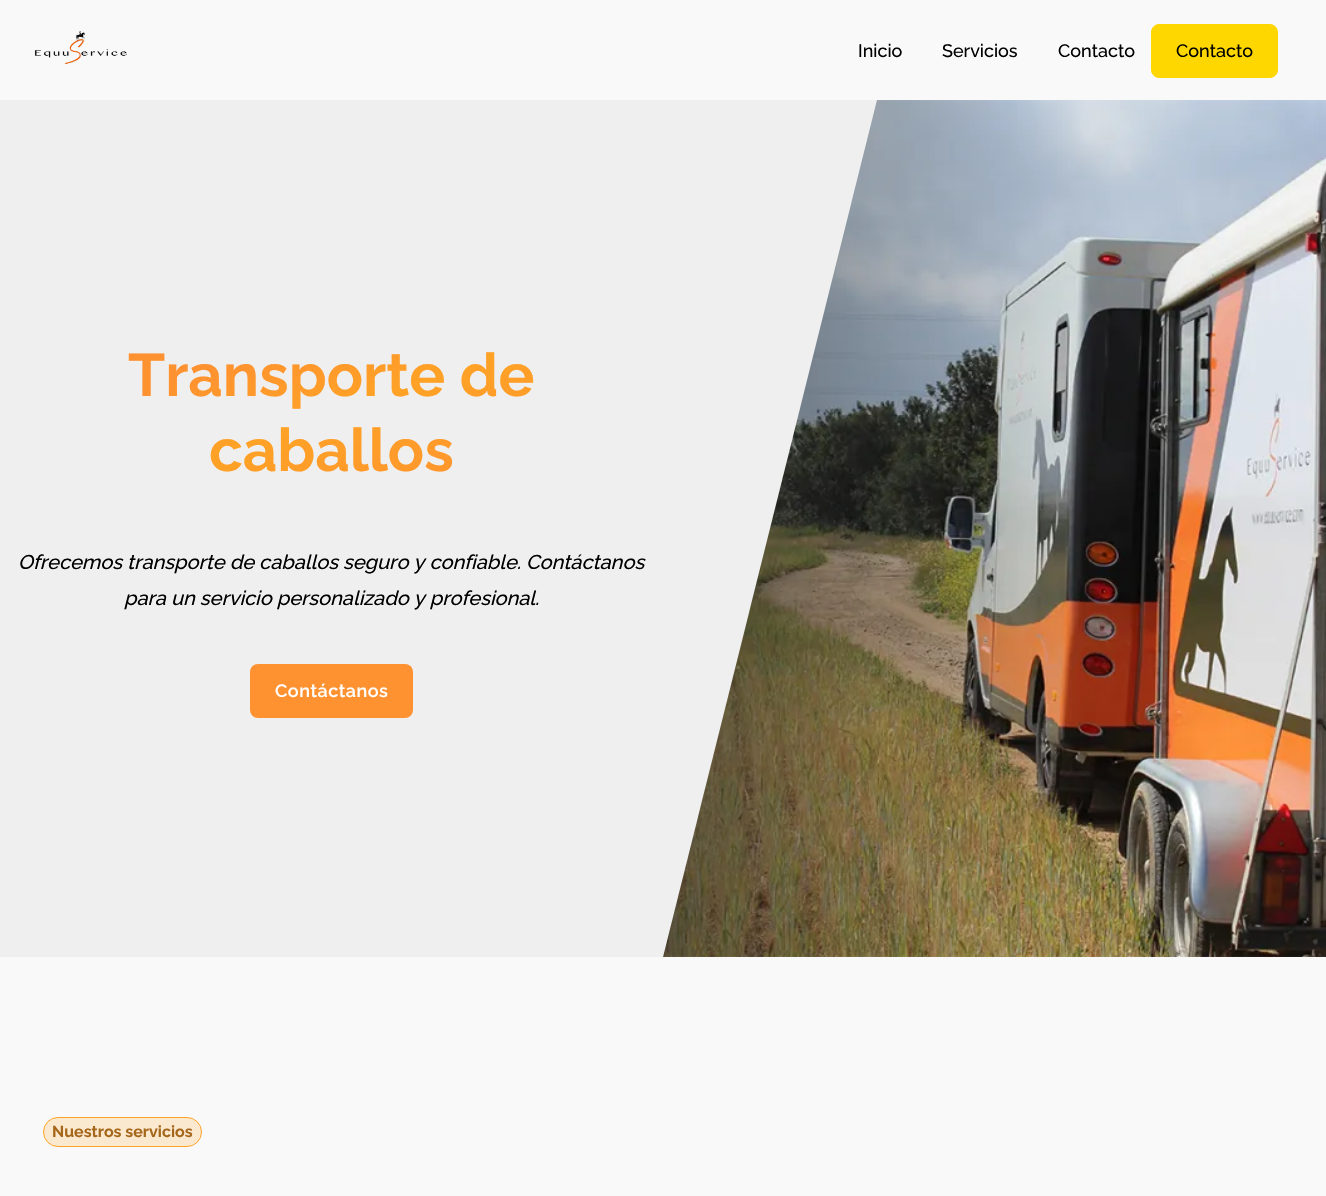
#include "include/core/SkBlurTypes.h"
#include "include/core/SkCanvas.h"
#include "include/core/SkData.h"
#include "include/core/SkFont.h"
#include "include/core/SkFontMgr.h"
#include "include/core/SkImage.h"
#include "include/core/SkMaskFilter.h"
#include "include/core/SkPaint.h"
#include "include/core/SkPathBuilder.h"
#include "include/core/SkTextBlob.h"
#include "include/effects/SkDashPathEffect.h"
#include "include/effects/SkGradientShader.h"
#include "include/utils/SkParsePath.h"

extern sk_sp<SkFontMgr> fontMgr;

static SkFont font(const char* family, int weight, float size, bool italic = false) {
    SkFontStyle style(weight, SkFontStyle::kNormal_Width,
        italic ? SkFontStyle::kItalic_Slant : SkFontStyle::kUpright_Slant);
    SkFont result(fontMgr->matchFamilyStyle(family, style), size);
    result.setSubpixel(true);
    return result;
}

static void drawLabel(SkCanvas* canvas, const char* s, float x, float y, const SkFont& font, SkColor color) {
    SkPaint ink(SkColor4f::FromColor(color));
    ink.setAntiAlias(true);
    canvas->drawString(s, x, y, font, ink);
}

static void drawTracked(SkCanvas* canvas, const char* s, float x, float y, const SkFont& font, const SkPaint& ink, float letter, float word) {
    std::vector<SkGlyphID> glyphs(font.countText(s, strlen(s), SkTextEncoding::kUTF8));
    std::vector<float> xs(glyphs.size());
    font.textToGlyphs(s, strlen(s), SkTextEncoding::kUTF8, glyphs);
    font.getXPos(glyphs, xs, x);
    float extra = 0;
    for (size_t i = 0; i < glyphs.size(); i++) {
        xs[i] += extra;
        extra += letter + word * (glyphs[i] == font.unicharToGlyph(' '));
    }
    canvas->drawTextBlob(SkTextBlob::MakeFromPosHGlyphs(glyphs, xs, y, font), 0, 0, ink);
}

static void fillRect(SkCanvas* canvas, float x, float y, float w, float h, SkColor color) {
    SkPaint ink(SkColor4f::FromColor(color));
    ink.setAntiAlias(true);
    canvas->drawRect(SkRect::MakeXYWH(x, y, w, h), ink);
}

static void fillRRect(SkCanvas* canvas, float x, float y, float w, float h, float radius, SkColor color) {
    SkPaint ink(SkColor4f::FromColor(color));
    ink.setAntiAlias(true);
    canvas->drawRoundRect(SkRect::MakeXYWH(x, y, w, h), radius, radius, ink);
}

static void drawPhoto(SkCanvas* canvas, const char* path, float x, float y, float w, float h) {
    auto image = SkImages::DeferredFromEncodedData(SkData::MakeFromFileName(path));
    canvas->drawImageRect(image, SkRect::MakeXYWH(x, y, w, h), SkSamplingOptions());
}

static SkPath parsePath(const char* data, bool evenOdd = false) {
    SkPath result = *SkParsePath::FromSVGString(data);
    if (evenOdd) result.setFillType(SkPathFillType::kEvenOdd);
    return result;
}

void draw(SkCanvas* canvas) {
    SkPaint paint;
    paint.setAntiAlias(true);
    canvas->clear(0xFFF9F9F9);
    drawPhoto(canvas, "assets/img1.png", 34, 31, 93, 33);
    SkFont font1 = font("Raleway", 500, 18);
    drawLabel(canvas, "Inicio", 858, 57, font1, 0xFF000000);
    drawLabel(canvas, "Servicios", 942, 57, font1, 0xFF000000);
    drawLabel(canvas, "Contacto", 1058, 57, font1, 0xFF000000);
    paint.setColor(0xFFFFD700);
    canvas->drawRoundRect(SkRect::MakeXYWH(1151.5f, 24.5f, 126, 53), 7.5f, 7.5f, paint);
    paint.setStroke(true);
    paint.setStrokeWidth(1);
    canvas->drawRoundRect(SkRect::MakeXYWH(1151.5f, 24.5f, 126, 53), 7.5f, 7.5f, paint);
    drawLabel(canvas, "Contacto", 1176, 57, font1, 0xFF000000);
    fillRect(canvas, 0, 100, 1326, 857, 0xFFEFEFEF);
    SkFont font2 = font("Raleway", 700, 60);
    paint.setStroke(false);
    {
        const SkColor colors[] = {0xFFFF9230, 0xFFFFA226, 0xFFFF9230};
        const float stops[] = {0.2f, 0.5f, 1};
        const SkPoint ends[] = {{286, 284}, {377, 542}};
        paint.setShader(SkGradientShader::MakeLinear(ends, colors, stops, 3, SkTileMode::kClamp));
        paint.setAlpha(255);
    }
    canvas->drawString("Transporte de", 128, 396, font2, paint);
    canvas->drawString("caballos", 209, 471, font2, paint);
    SkFont font3 = font("Raleway", 500, 20, true);
    drawLabel(canvas, "Ofrecemos transporte de caballos seguro y confiable. Contáctanos", 18, 569, font3, 0xFF000000);
    drawLabel(canvas, "para un servicio personalizado y profesional.", 124, 605, font3, 0xFF000000);
    fillRRect(canvas, 250, 664, 163, 54, 8, 0xFFFF9230);
    SkFont font4 = font("Raleway", 600, 18);
    paint.setShader(nullptr);
    paint.setColor(0xFFFFFFFF);
    drawTracked(canvas, "Contáctanos", 275, 697, font4, paint, 0.5f, 0);
    drawPhoto(canvas, "assets/img2.png", 663, 100, 663, 857);
    paint.setColor(0xFFEFEFEF);
    canvas->drawPath(parsePath("M663 100V957L877 100Z"), paint);
    paint.setColor(0xFFFAE8CF);
    canvas->drawRoundRect(SkRect::MakeXYWH(43.5f, 1117.5f, 158, 29), 14.5f, 14.5f, paint);
    paint.setStroke(true);
    paint.setColor(0xFFFFA226);
    canvas->drawRoundRect(SkRect::MakeXYWH(43.5f, 1117.5f, 158, 29), 14.5f, 14.5f, paint);
    SkFont font5 = font("Raleway", 700, 16);
    drawLabel(canvas, "Nuestros servicios", 52, 1137, font5, 0xFFA6671A);
}
